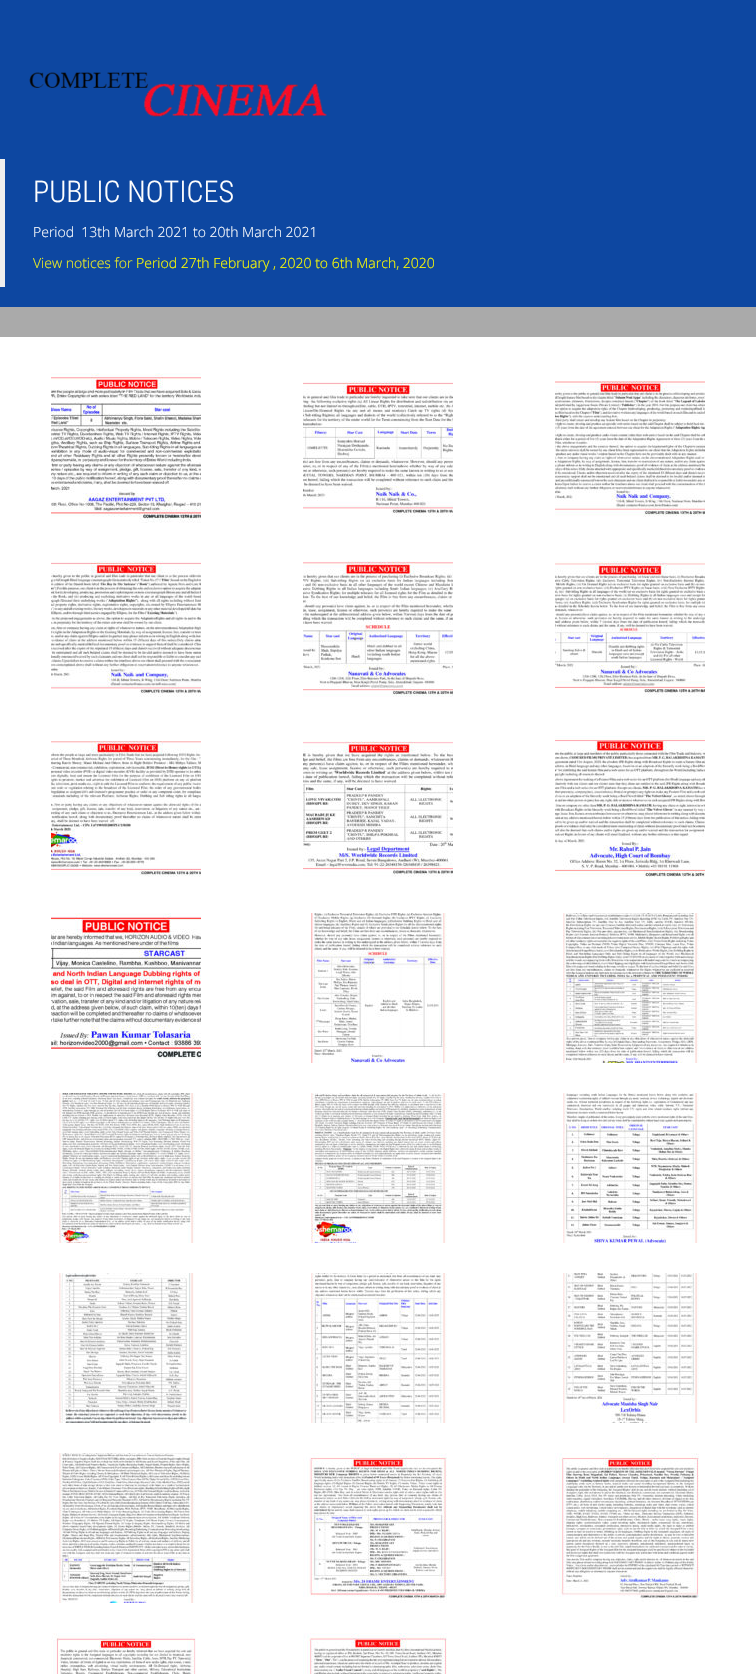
#include "include/core/SkBlurTypes.h"
#include "include/core/SkCanvas.h"
#include "include/core/SkData.h"
#include "include/core/SkFont.h"
#include "include/core/SkFontMgr.h"
#include "include/core/SkImage.h"
#include "include/core/SkMaskFilter.h"
#include "include/core/SkPaint.h"
#include "include/core/SkPathBuilder.h"
#include "include/core/SkTextBlob.h"
#include "include/effects/SkDashPathEffect.h"
#include "include/effects/SkGradientShader.h"
#include "include/utils/SkParsePath.h"

extern sk_sp<SkFontMgr> fontMgr;

static SkFont font(const char* family, int weight, float size, bool italic = false) {
    SkFontStyle style(weight, SkFontStyle::kNormal_Width,
        italic ? SkFontStyle::kItalic_Slant : SkFontStyle::kUpright_Slant);
    SkFont result(fontMgr->matchFamilyStyle(family, style), size);
    result.setSubpixel(true);
    return result;
}

static void drawLabel(SkCanvas* canvas, const char* s, float x, float y, const SkFont& font, SkColor color) {
    SkPaint ink(SkColor4f::FromColor(color));
    ink.setAntiAlias(true);
    canvas->drawString(s, x, y, font, ink);
}

static void fillRect(SkCanvas* canvas, float x, float y, float w, float h, SkColor color) {
    SkPaint ink(SkColor4f::FromColor(color));
    ink.setAntiAlias(true);
    canvas->drawRect(SkRect::MakeXYWH(x, y, w, h), ink);
}

static void drawPhoto(SkCanvas* canvas, const char* path, float x, float y, float w, float h) {
    auto image = SkImages::DeferredFromEncodedData(SkData::MakeFromFileName(path));
    canvas->drawImageRect(image, SkRect::MakeXYWH(x, y, w, h), SkSamplingOptions());
}

void draw(SkCanvas* canvas) {
    SkPaint paint;
    paint.setAntiAlias(true);
    canvas->clear(0xFFAAAAAA);
    fillRect(canvas, 0, 0, 756, 307, 0xFF0D47A1);
    drawPhoto(canvas, "assets/img1.png", 29, 72, 298, 45);
    fillRect(canvas, 0, 159, 5, 128, 0xFFEEEEEE);
    SkFont font1 = font("Roboto Condensed", 300, 30);
    drawLabel(canvas, "PUBLIC NOTICES", 33, 202, font1, 0xFFFFFFFF);
    SkFont font2 = font("Open Sans", 300, 14);
    drawLabel(canvas, "Period  13th March 2021 to 20th March 2021", 33, 237, font2, 0xFFFFFFFF);
    drawLabel(canvas, "View notices for", 33, 268, font2, 0xFFEEEE22);
    drawLabel(canvas, "Period 27th February , 2020 to 6th March, 2020", 136, 268, font2, 0xFFFFFF00);
    fillRect(canvas, 0, 337, 756, 1337, 0xFFFFFFFF);
    drawPhoto(canvas, "assets/img2.png", 51, 373, 150, 150);
    drawPhoto(canvas, "assets/img3.png", 303, 381, 150, 136);
    drawPhoto(canvas, "assets/img4.png", 555, 381, 150, 136);
    drawPhoto(canvas, "assets/img5.png", 51, 561, 150, 136);
    drawPhoto(canvas, "assets/img6.png", 303, 561, 150, 136);
    drawPhoto(canvas, "assets/img7.png", 555, 561, 150, 136);
    drawPhoto(canvas, "assets/img8.png", 51, 741, 150, 136);
    drawPhoto(canvas, "assets/img9.png", 303, 741, 150, 136);
    drawPhoto(canvas, "assets/img10.png", 555, 736, 150, 141);
    drawPhoto(canvas, "assets/img11.png", 51, 913, 150, 146);
    drawPhoto(canvas, "assets/img12.png", 311, 913, 136, 150);
    drawPhoto(canvas, "assets/img13.png", 563, 913, 136, 150);
    drawPhoto(canvas, "assets/img14.png", 59, 1093, 136, 150);
    drawPhoto(canvas, "assets/img15.png", 311, 1093, 136, 150);
    drawPhoto(canvas, "assets/img16.png", 563, 1093, 136, 150);
    drawPhoto(canvas, "assets/img17.png", 59, 1273, 135, 150);
    drawPhoto(canvas, "assets/img18.png", 311, 1273, 136, 150);
    drawPhoto(canvas, "assets/img19.png", 563, 1273, 136, 150);
    drawPhoto(canvas, "assets/img20.png", 59, 1453, 136, 150);
    drawPhoto(canvas, "assets/img21.png", 303, 1453, 144, 150);
    drawPhoto(canvas, "assets/img22.png", 555, 1453, 144, 149);
    drawPhoto(canvas, "assets/img23.png", 51, 1633, 145, 41);
    drawPhoto(canvas, "assets/img24.png", 303, 1633, 144, 41);
}
